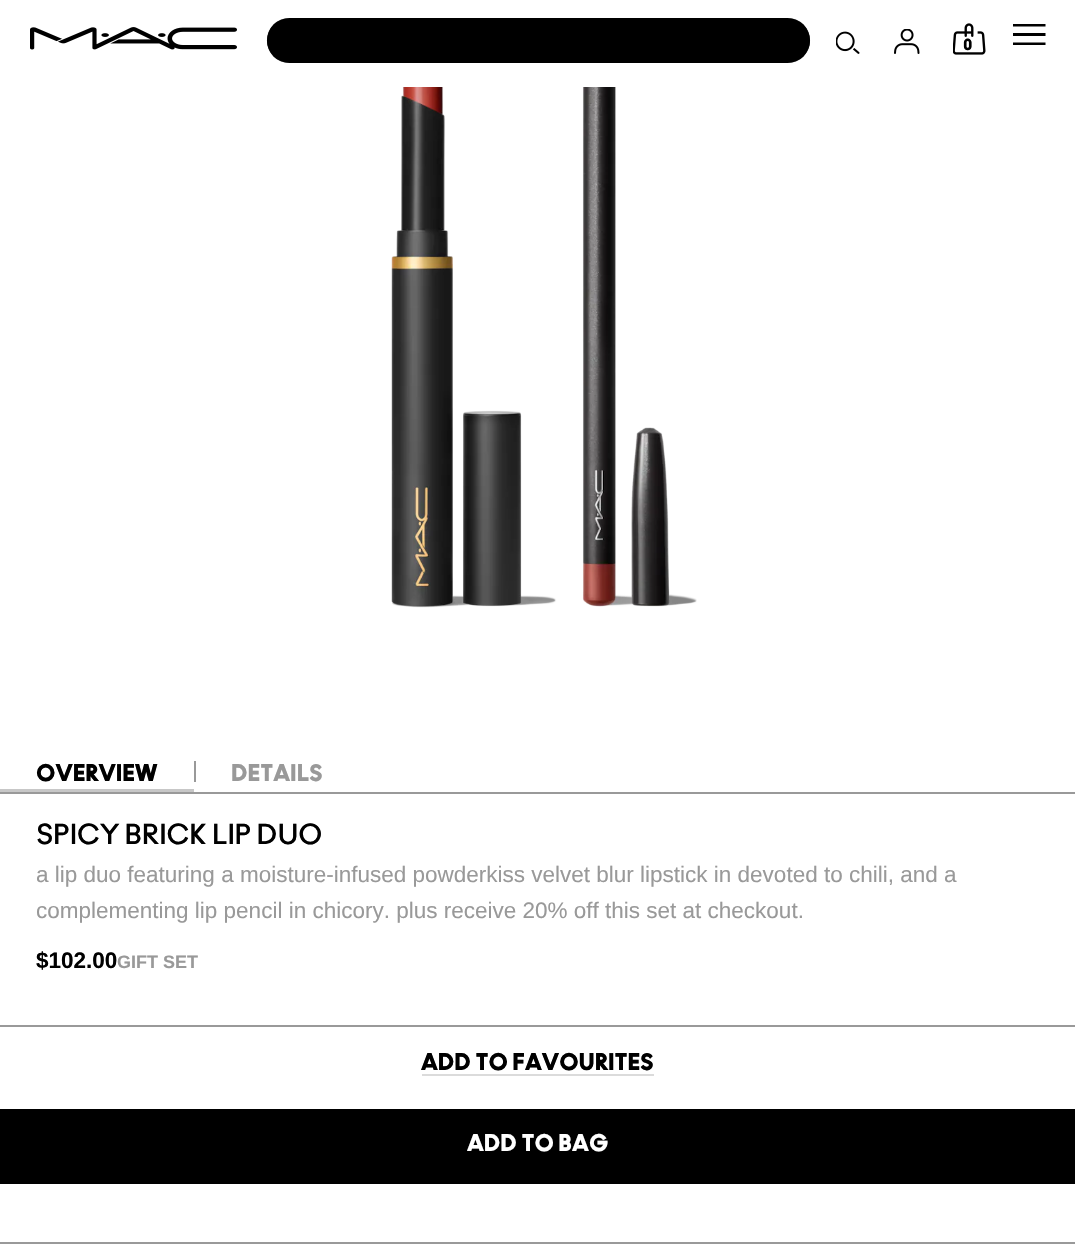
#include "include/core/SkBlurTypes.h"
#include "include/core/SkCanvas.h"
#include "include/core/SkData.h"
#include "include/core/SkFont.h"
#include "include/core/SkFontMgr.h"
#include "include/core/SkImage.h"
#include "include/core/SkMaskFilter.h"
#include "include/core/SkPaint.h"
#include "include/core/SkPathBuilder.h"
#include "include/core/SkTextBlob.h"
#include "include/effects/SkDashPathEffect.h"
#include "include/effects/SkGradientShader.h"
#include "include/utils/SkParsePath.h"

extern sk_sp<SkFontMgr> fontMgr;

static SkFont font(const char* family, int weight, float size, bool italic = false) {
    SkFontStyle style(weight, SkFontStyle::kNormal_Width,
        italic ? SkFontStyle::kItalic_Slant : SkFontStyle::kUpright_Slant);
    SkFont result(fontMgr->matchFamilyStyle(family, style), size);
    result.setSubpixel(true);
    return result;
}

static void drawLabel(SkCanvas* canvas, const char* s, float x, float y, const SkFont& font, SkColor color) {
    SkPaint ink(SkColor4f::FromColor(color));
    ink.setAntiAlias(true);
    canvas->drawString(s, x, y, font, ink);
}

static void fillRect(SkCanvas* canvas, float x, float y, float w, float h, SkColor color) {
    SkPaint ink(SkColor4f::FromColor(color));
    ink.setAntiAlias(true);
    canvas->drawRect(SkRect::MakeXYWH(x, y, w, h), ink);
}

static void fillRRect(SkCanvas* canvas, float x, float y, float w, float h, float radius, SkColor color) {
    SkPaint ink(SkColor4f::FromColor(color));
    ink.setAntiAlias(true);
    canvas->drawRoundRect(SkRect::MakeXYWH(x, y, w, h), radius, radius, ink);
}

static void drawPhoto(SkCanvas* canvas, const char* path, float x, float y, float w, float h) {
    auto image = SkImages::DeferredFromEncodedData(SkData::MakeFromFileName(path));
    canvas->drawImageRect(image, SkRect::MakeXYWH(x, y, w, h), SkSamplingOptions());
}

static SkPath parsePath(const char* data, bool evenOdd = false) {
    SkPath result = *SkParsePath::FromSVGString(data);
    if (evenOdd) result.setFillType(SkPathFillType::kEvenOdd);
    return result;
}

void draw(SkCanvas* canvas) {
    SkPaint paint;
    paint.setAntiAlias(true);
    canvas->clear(0xFFFFFFFF);
    drawPhoto(canvas, "assets/img1.png", 30, 27, 207, 23);
    fillRRect(canvas, 267, 18, 543, 45, 22.5f, 0xFF000000);
    {
        const SkColor colors[] = {0xE6000000, 0x1A000000};
        const float stops[] = {0, 1};
        const SkPoint ends[] = {{267, 41}, {297, 41}};
        paint.setShader(SkGradientShader::MakeLinear(ends, colors, stops, 2, SkTileMode::kClamp));
        paint.setAlpha(255);
    }
    canvas->drawPath(parsePath("M289.5 18H297V63H289.5C277 63 267 53 267 40.5C267 28 277 18 289.5 18Z"), paint);
    {
        const SkColor colors[] = {0xE6000000, 0x1A000000};
        const float stops[] = {0, 1};
        const SkPoint ends[] = {{810, 41}, {780, 41}};
        paint.setShader(SkGradientShader::MakeLinear(ends, colors, stops, 2, SkTileMode::kClamp));
        paint.setAlpha(255);
    }
    canvas->drawPath(parsePath("M780 18H787.5C800 18 810 28 810 40.5C810 53 800 63 787.5 63H780Z"), paint);
    drawPhoto(canvas, "assets/img2.png", 836, 31, 24, 23);
    drawPhoto(canvas, "assets/img3.png", 894, 29, 26, 25);
    drawPhoto(canvas, "assets/img4.png", 953, 23, 33, 32);
    SkFont font1 = font("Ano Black", 900, 15);
    drawLabel(canvas, "0", 963, 50, font1, 0xFF000000);
    canvas->save();
    canvas->clipRect(SkRect::MakeXYWH(1013, 18, 33, 33));
    paint.setShader(nullptr);
    paint.setColor(0xFF000000);
    canvas->drawPath(parsePath("M1012.5 24H1045.5V26.5H1012.5ZM1012.5 33H1045.5V36H1012.5ZM1012.5 42.5H1045.5V45H1012.5Z"), paint);
    canvas->restore();
    drawPhoto(canvas, "assets/img5.png", 391, 87, 306, 521);
    fillRect(canvas, 0, 1242, 1075, 2, 0xFF999999);
    fillRect(canvas, 0, 792, 1075, 2, 0xFF999999);
    fillRect(canvas, 0, 789, 194, 3, 0xFFC7C7C7);
    SkFont font2 = font("Ano Black", 900, 22.5f);
    drawLabel(canvas, "OVERVIEW", 36, 781, font2, 0xFF000000);
    fillRect(canvas, 194, 761, 2, 21, 0xFF999999);
    drawLabel(canvas, "DETAILS", 231, 781, font2, 0xFF999999);
    SkFont font3 = font("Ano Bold", 700, 27);
    drawLabel(canvas, "SPICY BRICK LIP DUO", 36, 844, font3, 0xFF000000);
    SkFont font4 = font("Liberation Sans", 400, 22.5f);
    drawLabel(canvas, "a lip duo featuring a moisture-infused powderkiss velvet blur lipstick in devoted to chili, and a", 36, 882, font4, 0xFF999999);
    drawLabel(canvas, "complementing lip pencil in chicory. plus receive 20% off this set at checkout.", 36, 918, font4, 0xFF999999);
    SkFont font5 = font("Liberation Sans", 700, 22.5f);
    drawLabel(canvas, "$102.00", 36, 968, font5, 0xFF000000);
    SkFont font6 = font("Liberation Sans", 700, 18);
    drawLabel(canvas, "GIFT SET", 117, 968, font6, 0xFF999999);
    fillRect(canvas, 0, 1025, 1075, 2, 0xFF999999);
    drawLabel(canvas, "ADD TO FAVOURITES", 421, 1070, font2, 0xFF000000);
    fillRect(canvas, 422, 1074, 232, 2, 0xFFDBDBDB);
    fillRect(canvas, 0, 1109, 1075, 75, 0xFF000000);
    drawLabel(canvas, "ADD TO BAG", 467, 1151, font2, 0xFFFFFFFF);
}
